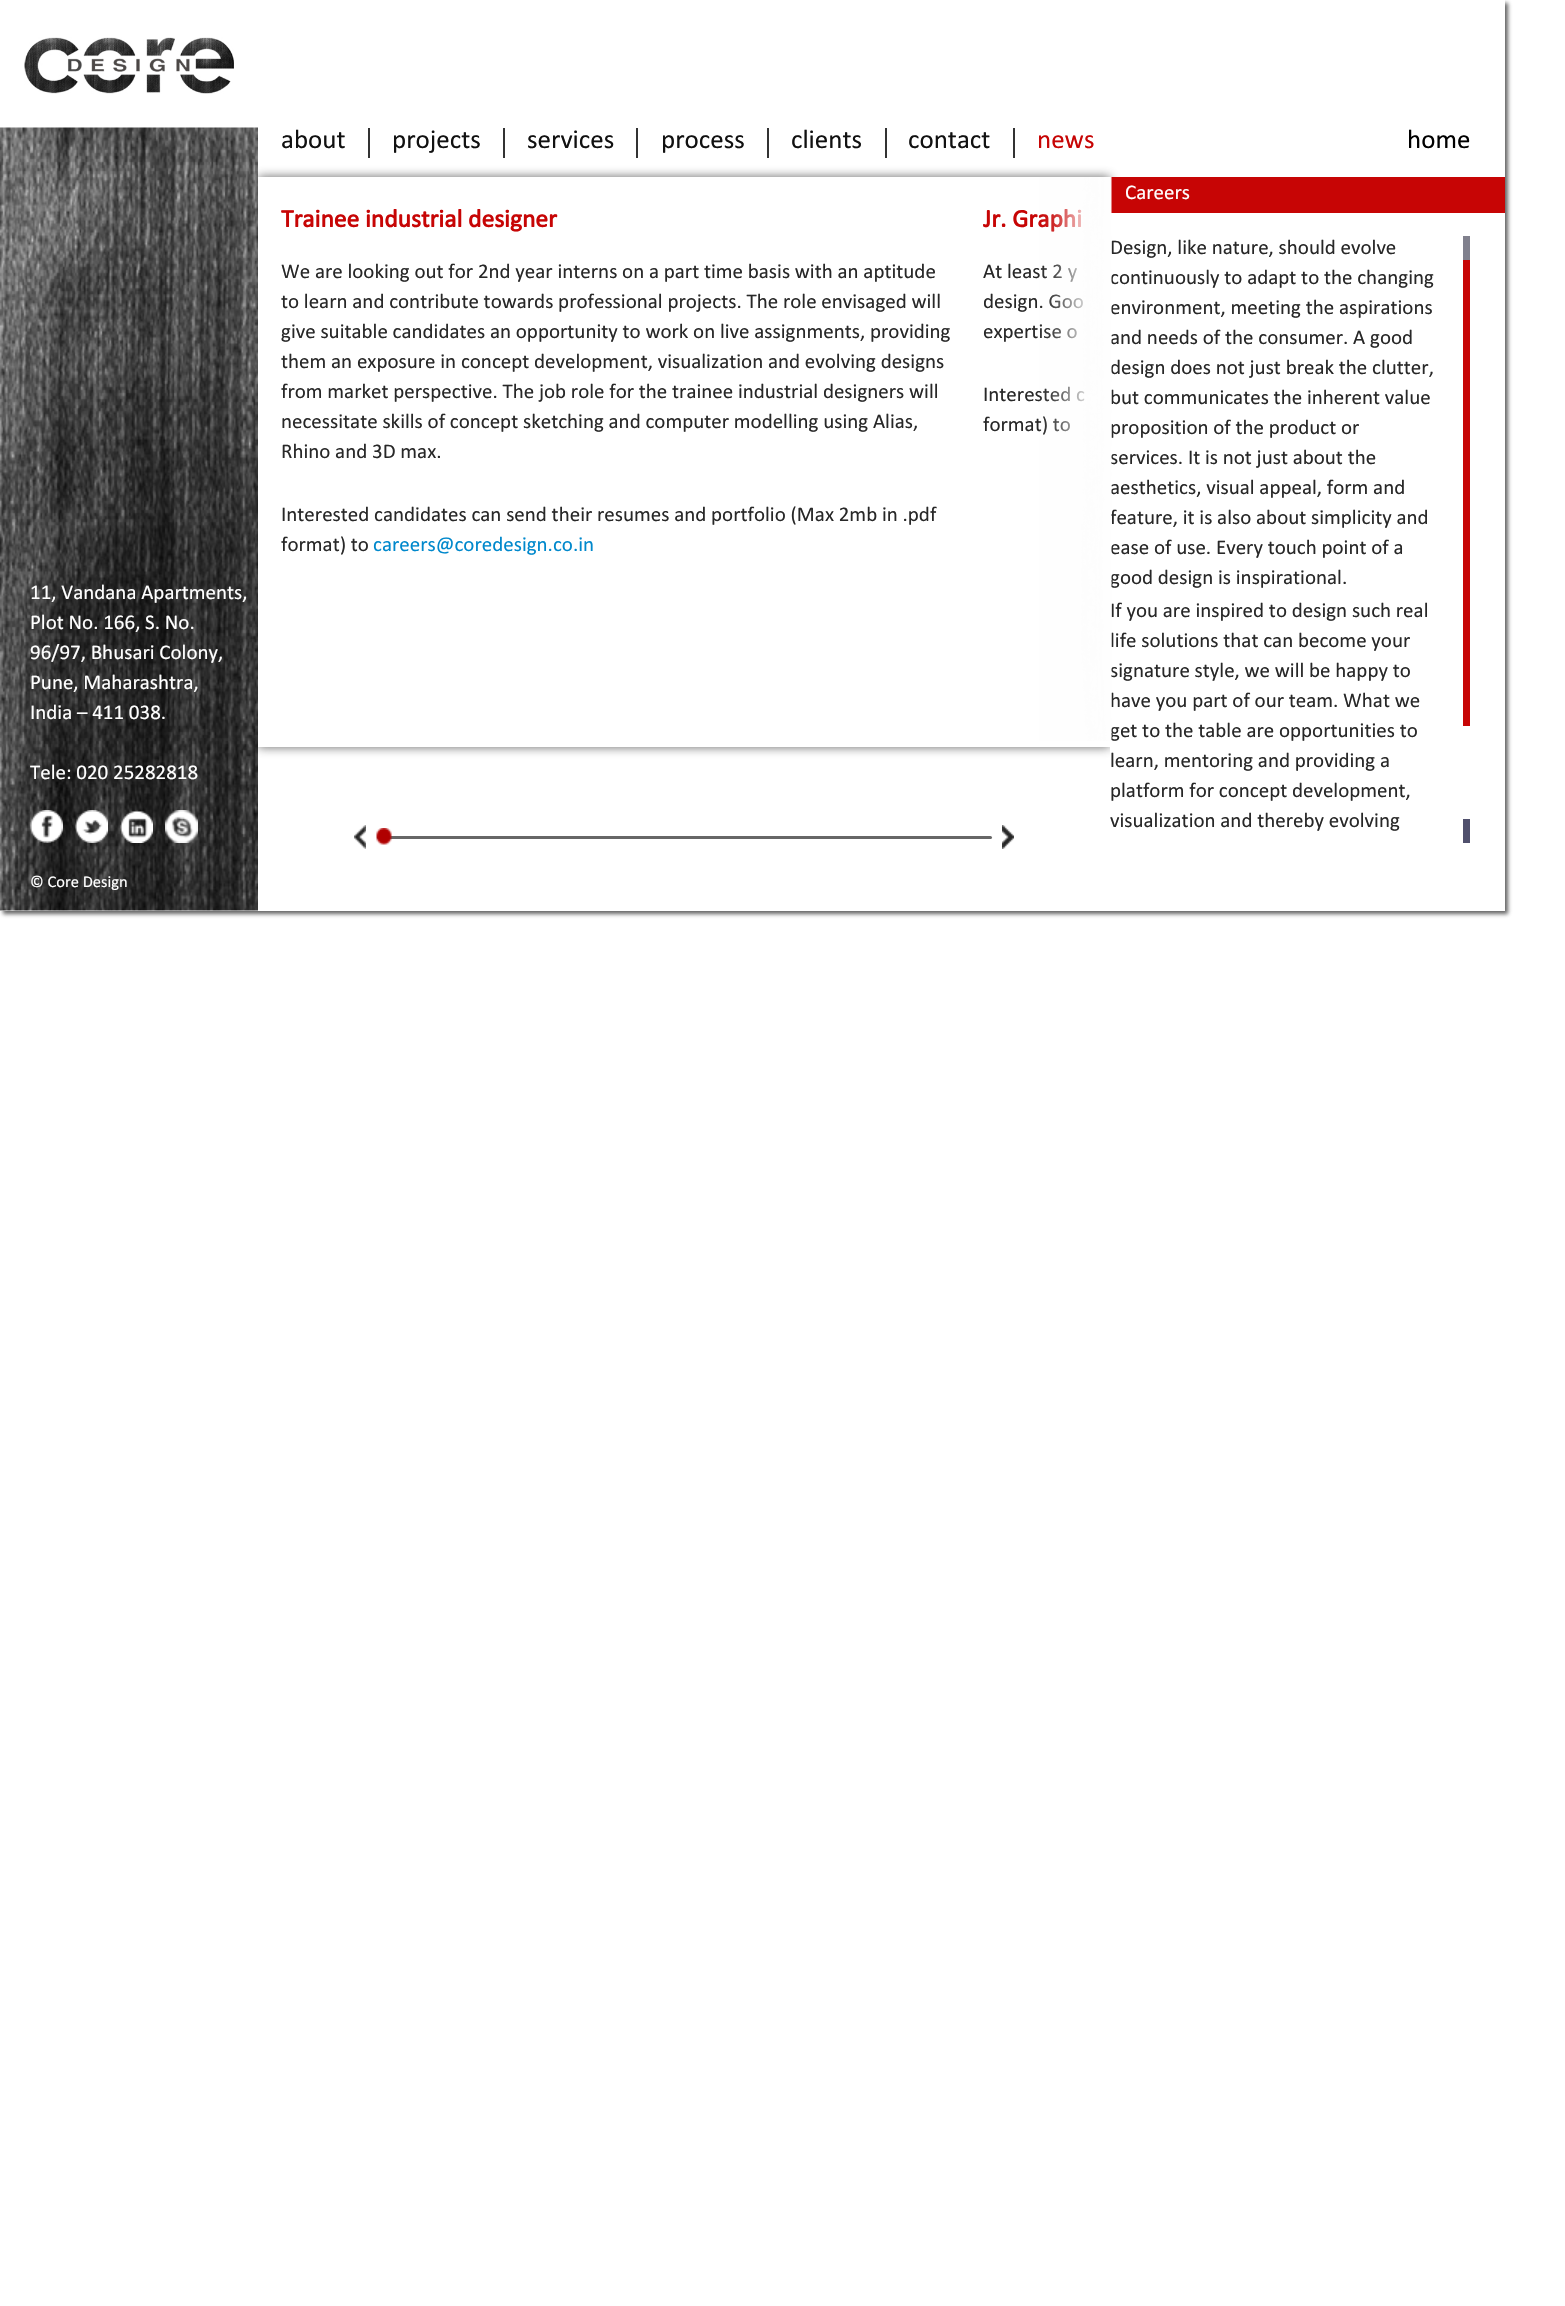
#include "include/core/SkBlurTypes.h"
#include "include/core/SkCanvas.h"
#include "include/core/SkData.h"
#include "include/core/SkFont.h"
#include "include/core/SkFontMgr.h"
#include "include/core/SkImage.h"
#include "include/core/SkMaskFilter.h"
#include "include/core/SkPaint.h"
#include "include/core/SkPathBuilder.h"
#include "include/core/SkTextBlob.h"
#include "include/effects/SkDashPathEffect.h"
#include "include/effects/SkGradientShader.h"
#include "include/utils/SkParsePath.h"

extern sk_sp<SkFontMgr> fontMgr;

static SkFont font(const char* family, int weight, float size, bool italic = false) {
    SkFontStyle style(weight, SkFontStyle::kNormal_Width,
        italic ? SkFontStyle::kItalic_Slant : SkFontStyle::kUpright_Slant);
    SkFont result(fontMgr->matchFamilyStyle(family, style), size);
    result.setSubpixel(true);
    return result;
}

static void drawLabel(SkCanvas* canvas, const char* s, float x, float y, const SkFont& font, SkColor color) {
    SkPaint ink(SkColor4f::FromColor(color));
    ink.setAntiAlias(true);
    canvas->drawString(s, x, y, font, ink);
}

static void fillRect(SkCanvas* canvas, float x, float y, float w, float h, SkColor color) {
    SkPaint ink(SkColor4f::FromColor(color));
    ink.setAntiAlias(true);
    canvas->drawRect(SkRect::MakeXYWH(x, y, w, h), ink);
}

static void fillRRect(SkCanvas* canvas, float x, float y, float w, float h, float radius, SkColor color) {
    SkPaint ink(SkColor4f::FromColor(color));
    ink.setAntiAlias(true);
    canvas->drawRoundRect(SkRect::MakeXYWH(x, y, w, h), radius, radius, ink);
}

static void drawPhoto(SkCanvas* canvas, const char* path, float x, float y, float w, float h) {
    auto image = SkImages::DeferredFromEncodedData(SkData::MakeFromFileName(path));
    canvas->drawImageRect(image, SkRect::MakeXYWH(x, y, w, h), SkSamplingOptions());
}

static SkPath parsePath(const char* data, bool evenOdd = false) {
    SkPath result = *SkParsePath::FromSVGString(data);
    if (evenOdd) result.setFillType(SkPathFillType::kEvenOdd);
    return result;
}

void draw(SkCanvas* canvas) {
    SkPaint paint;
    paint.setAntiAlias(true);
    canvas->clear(0xFFFFFFFF);
    canvas->save();
    canvas->clipPath(parsePath("M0 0H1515V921H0ZM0 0H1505V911H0Z", true), true);
    paint.setColor(0xBF323232);
    paint.setMaskFilter(SkMaskFilter::MakeBlur(kNormal_SkBlurStyle, 2));
    canvas->drawRect(SkRect::MakeXYWH(3, 3, 1505, 911), paint);
    paint.setMaskFilter(nullptr);
    canvas->restore();
    drawPhoto(canvas, "assets/img1.png", 24, 37, 210, 57);
    canvas->save();
    canvas->clipPath(parsePath("M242 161H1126V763H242ZM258 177H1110V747H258Z", true), true);
    paint.setMaskFilter(SkMaskFilter::MakeBlur(kNormal_SkBlurStyle, 5));
    canvas->drawRect(SkRect::MakeXYWH(258, 177, 852, 570), paint);
    paint.setMaskFilter(nullptr);
    canvas->restore();
    drawPhoto(canvas, "assets/img2.png", 0, 127, 258, 784);
    SkFont font1 = font("Calibri", 400, 21);
    drawLabel(canvas, "11, Vandana Apartments,", 30, 599, font1, 0xFFFFFFFF);
    drawLabel(canvas, "Plot No. 166, S. No.", 30, 629, font1, 0xFFFFFFFF);
    drawLabel(canvas, "96/97, Bhusari Colony,", 30, 659, font1, 0xFFFFFFFF);
    drawLabel(canvas, "Pune, Maharashtra,", 30, 689, font1, 0xFFFFFFFF);
    drawLabel(canvas, "India – 411 038.", 30, 719, font1, 0xFFFFFFFF);
    drawLabel(canvas, "Tele: 020 25282818", 30, 779, font1, 0xFFFFFFFF);
    drawPhoto(canvas, "assets/img3.png", 30, 810, 33, 33);
    drawPhoto(canvas, "assets/img4.png", 75, 810, 33, 33);
    drawPhoto(canvas, "assets/img5.png", 120, 810, 33, 33);
    drawPhoto(canvas, "assets/img6.png", 165, 810, 33, 33);
    SkFont font2 = font("Calibri", 400, 16.5f);
    drawLabel(canvas, "© Core Design", 30, 887, font2, 0xFFFFFFFF);
    fillRect(canvas, 368, 128, 2, 30, 0xFF333333);
    SkFont font3 = font("Calibri", 400, 27);
    drawLabel(canvas, "about", 281, 148, font3, 0xFF111111);
    fillRect(canvas, 503, 128, 2, 30, 0xFF333333);
    drawLabel(canvas, "projects", 392, 148, font3, 0xFF111111);
    fillRect(canvas, 636, 128, 2, 30, 0xFF333333);
    drawLabel(canvas, "services", 527, 148, font3, 0xFF111111);
    fillRect(canvas, 767, 128, 2, 30, 0xFF333333);
    drawLabel(canvas, "process", 661, 148, font3, 0xFF111111);
    fillRect(canvas, 885, 128, 2, 30, 0xFF333333);
    drawLabel(canvas, "clients", 791, 148, font3, 0xFF111111);
    fillRect(canvas, 1013, 128, 2, 30, 0xFF333333);
    drawLabel(canvas, "contact", 908, 148, font3, 0xFF111111);
    drawLabel(canvas, "news", 1037, 148, font3, 0xFFC70505);
    drawLabel(canvas, "home", 1407, 148, font3, 0xFF000000);
    SkFont font4 = font("Calibri", 700, 25.5f);
    drawLabel(canvas, "Jr. Graphi", 983, 227, font4, 0xFFC70505);
    drawLabel(canvas, "At least 2 y", 983, 278, font1, 0xFF282828);
    drawLabel(canvas, "design. Goo", 983, 308, font1, 0xFF282828);
    drawLabel(canvas, "expertise o", 983, 338, font1, 0xFF282828);
    drawLabel(canvas, "Interested c", 983, 401, font1, 0xFF282828);
    drawLabel(canvas, "format) to", 983, 431, font1, 0xFF282828);
    fillRect(canvas, 1110, 213, 395, 639, 0xFFFFFFFF);
    fillRect(canvas, 1110, 177, 395, 36, 0xFFC70505);
    drawLabel(canvas, "Design, like nature, should evolve", 1110, 254, font1, 0xFF282828);
    drawLabel(canvas, "continuously to adapt to the changing", 1110, 284, font1, 0xFF282828);
    drawLabel(canvas, "environment, meeting the aspirations", 1110, 314, font1, 0xFF282828);
    drawLabel(canvas, "and needs of the consumer. A good", 1110, 344, font1, 0xFF282828);
    drawLabel(canvas, "design does not just break the clutter,", 1110, 374, font1, 0xFF282828);
    drawLabel(canvas, "but communicates the inherent value", 1110, 404, font1, 0xFF282828);
    drawLabel(canvas, "proposition of the product or", 1110, 434, font1, 0xFF282828);
    drawLabel(canvas, "services. It is not just about the", 1110, 464, font1, 0xFF282828);
    drawLabel(canvas, "aesthetics, visual appeal, form and", 1110, 494, font1, 0xFF282828);
    drawLabel(canvas, "feature, it is also about simplicity and", 1110, 524, font1, 0xFF282828);
    drawLabel(canvas, "ease of use. Every touch point of a", 1110, 554, font1, 0xFF282828);
    drawLabel(canvas, "good design is inspirational.", 1110, 584, font1, 0xFF282828);
    drawLabel(canvas, "If you are inspired to design such real", 1110, 617, font1, 0xFF282828);
    drawLabel(canvas, "life solutions that can become your", 1110, 647, font1, 0xFF282828);
    drawLabel(canvas, "signature style, we will be happy to", 1110, 677, font1, 0xFF282828);
    drawLabel(canvas, "have you part of our team. What we", 1110, 707, font1, 0xFF282828);
    drawLabel(canvas, "get to the table are opportunities to", 1110, 737, font1, 0xFF282828);
    drawPhoto(canvas, "assets/img7.png", 1039, 177, 73, 564);
    drawLabel(canvas, "Trainee industrial designer", 281, 227, font4, 0xFFC70505);
    drawLabel(canvas, "We are looking out for 2nd year interns on a part time basis with an aptitude", 281, 278, font1, 0xFF282828);
    drawLabel(canvas, "to learn and contribute towards professional projects. The role envisaged will", 281, 308, font1, 0xFF282828);
    drawLabel(canvas, "give suitable candidates an opportunity to work on live assignments, providing", 281, 338, font1, 0xFF282828);
    drawLabel(canvas, "them an exposure in concept development, visualization and evolving designs", 281, 368, font1, 0xFF282828);
    drawLabel(canvas, "from market perspective. The job role for the trainee industrial designers will", 281, 398, font1, 0xFF282828);
    drawLabel(canvas, "necessitate skills of concept sketching and computer modelling using Alias,", 281, 428, font1, 0xFF282828);
    drawLabel(canvas, "Rhino and 3D max.", 281, 458, font1, 0xFF282828);
    drawLabel(canvas, "Interested candidates can send their resumes and portfolio (Max 2mb in .pdf", 281, 521, font1, 0xFF282828);
    drawLabel(canvas, "format) to", 281, 551, font1, 0xFF282828);
    drawLabel(canvas, "careers@coredesign.co.in", 373, 551, font1, 0xFF0088CC);
    drawPhoto(canvas, "assets/img8.png", 354, 825, 12, 24);
    fillRRect(canvas, 377, 836, 615, 3, 1.5f, 0xFF676767);
    drawPhoto(canvas, "assets/img9.png", 376, 828, 16, 17);
    drawPhoto(canvas, "assets/img10.png", 1002, 825, 12, 24);
    drawLabel(canvas, "Careers", 1125, 199, font1, 0xFFFFFFFF);
    drawLabel(canvas, "learn, mentoring and providing a", 1110, 767, font1, 0xFF282828);
    drawLabel(canvas, "platform for concept development,", 1110, 797, font1, 0xFF282828);
    drawLabel(canvas, "visualization and thereby evolving", 1110, 827, font1, 0xFF282828);
    fillRect(canvas, 1463, 236, 7, 24, 0xFF80808D);
    fillRect(canvas, 1463, 260, 7, 466, 0xFFC70505);
    fillRect(canvas, 1463, 819, 7, 24, 0xFF50506D);
}
